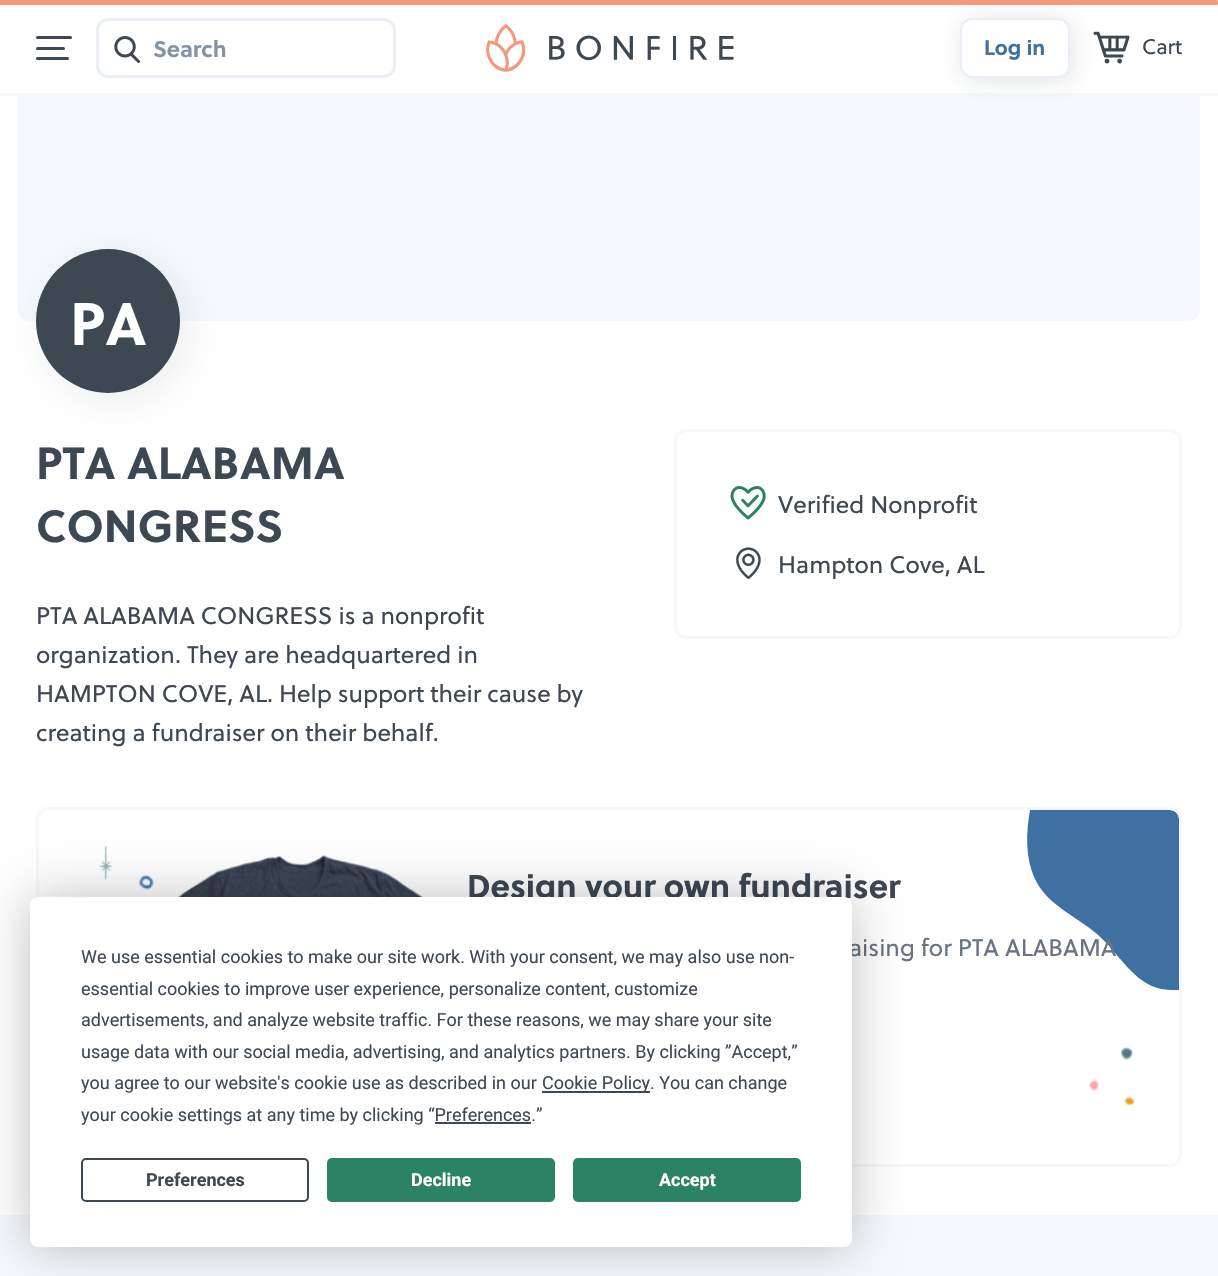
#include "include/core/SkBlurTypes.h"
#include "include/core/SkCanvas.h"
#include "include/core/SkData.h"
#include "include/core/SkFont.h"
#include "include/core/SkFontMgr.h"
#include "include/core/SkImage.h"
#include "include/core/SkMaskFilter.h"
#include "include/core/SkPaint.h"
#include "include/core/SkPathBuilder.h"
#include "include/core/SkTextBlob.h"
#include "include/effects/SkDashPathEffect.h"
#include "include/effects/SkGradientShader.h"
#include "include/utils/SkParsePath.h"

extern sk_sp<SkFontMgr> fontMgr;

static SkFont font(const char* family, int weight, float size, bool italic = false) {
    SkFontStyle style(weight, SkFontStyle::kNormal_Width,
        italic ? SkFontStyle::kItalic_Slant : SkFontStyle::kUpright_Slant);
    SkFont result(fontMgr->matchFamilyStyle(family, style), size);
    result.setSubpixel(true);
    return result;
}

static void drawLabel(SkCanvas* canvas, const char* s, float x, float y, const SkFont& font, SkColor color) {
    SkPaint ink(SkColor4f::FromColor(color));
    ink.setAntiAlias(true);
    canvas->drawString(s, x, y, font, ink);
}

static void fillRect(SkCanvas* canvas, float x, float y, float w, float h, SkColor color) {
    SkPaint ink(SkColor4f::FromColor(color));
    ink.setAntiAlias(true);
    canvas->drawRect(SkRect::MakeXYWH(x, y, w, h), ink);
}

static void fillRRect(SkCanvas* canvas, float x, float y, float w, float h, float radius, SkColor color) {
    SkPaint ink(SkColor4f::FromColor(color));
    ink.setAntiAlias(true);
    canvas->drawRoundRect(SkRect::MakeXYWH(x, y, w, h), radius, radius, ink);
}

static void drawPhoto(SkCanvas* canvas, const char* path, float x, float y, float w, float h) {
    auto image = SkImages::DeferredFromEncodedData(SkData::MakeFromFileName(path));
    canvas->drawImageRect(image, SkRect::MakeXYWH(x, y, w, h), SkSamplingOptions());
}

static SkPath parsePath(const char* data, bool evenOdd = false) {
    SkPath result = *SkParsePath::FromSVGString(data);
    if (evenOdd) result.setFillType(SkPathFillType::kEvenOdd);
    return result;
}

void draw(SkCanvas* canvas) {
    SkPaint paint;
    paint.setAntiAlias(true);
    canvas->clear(0xFFFFFFFF);
    fillRect(canvas, 0, 93, 1218, 3, 0xFFF5F8FC);
    paint.setColor(0xFFF5F8FC);
    canvas->drawPath(parsePath("M18 96H1200V309C1200 315.5 1194.5 321 1188 321H30C23.5 321 18 315.5 18 309Z"), paint);
    paint.setColor(0x263D4853);
    paint.setMaskFilter(SkMaskFilter::MakeBlur(kNormal_SkBlurStyle, 12));
    canvas->drawRoundRect(SkRect::MakeXYWH(963, 21, 110, 60), 12, 12, paint);
    paint.setMaskFilter(nullptr);
    paint.setColor(0xFFF49979);
    canvas->drawPath(parsePath("M0 0H1216.5C1217.5 0 1218 .5 1218 1.5V3.5C1218 4.5 1217.5 5 1216.5 5H0Z"), paint);
    fillRRect(canvas, 36, 36, 36, 3, 1.5f, 0xFF3D4853);
    fillRRect(canvas, 36, 47, 29, 3, 1.5f, 0xFF3D4853);
    fillRRect(canvas, 36, 57, 33, 3, 1.5f, 0xFF3D4853);
    paint.setStroke(true);
    paint.setStrokeWidth(3);
    paint.setColor(0xFFEAEFF7);
    canvas->drawRoundRect(SkRect::MakeXYWH(97.5f, 19.5f, 297, 57), 10.5f, 10.5f, paint);
    drawPhoto(canvas, "assets/img1.png", 114, 36, 26, 27);
    SkFont font1 = font("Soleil", 700, 22.5f);
    drawLabel(canvas, "Search", 153, 57, font1, 0xFF8693A6);
    drawPhoto(canvas, "assets/img2.png", 486, 24, 248, 48);
    paint.setStroke(false);
    paint.setColor(0xFFFFFFFF);
    canvas->drawRoundRect(SkRect::MakeXYWH(961, 19, 108, 58), 11, 11, paint);
    paint.setStroke(true);
    paint.setStrokeWidth(2);
    paint.setColor(0xFFEAEFF7);
    canvas->drawRoundRect(SkRect::MakeXYWH(961, 19, 108, 58), 11, 11, paint);
    SkFont font2 = font("Soleil", 700, 21);
    drawLabel(canvas, "Log in", 984, 55, font2, 0xFF3F70A2);
    drawPhoto(canvas, "assets/img3.png", 1093, 31, 37, 33);
    SkFont font3 = font("Soleil", 400, 21);
    drawLabel(canvas, "Cart", 1142, 54, font3, 0xFF3D4853);
    paint.setStroke(false);
    paint.setColor(0x1A3D4853);
    paint.setMaskFilter(SkMaskFilter::MakeBlur(kNormal_SkBlurStyle, 19));
    canvas->drawRoundRect(SkRect::MakeXYWH(44, 257, 144, 144), 72, 72, paint);
    paint.setMaskFilter(nullptr);
    paint.setColor(0xFF3D4853);
    canvas->drawCircle(108, 321, 72, paint);
    SkFont font4 = font("Soleil", 700, 60);
    drawLabel(canvas, "PA", 70, 345, font4, 0xFFFFFFFF);
    SkFont font5 = font("Soleil", 700, 45);
    drawLabel(canvas, "PTA ALABAMA", 36, 479, font5, 0xFF3D4853);
    drawLabel(canvas, "CONGRESS", 36, 542, font5, 0xFF3D4853);
    paint.setStroke(true);
    paint.setStrokeWidth(3);
    paint.setColor(0xFFF5F8FC);
    canvas->drawRoundRect(SkRect::MakeXYWH(675.5f, 430.5f, 505, 207), 10.5f, 10.5f, paint);
    drawPhoto(canvas, "assets/img4.png", 730, 486, 36, 34);
    SkFont font6 = font("Soleil", 400, 24);
    drawLabel(canvas, "Verified Nonprofit", 778, 513, font6, 0xFF3D4853);
    drawPhoto(canvas, "assets/img5.png", 736, 547, 25, 32);
    drawLabel(canvas, "Hampton Cove, AL", 778, 573, font6, 0xFF3D4853);
    drawLabel(canvas, "PTA ALABAMA CONGRESS is a nonprofit", 36, 624, font6, 0xFF3D4853);
    drawLabel(canvas, "organization. They are headquartered in", 36, 663, font6, 0xFF3D4853);
    drawLabel(canvas, "HAMPTON COVE, AL. Help support their cause by", 36, 702, font6, 0xFF3D4853);
    drawLabel(canvas, "creating a fundraiser on their behalf.", 36, 741, font6, 0xFF3D4853);
    paint.setStroke(false);
    paint.setColor(0xFF3F70A2);
    canvas->drawPath(parsePath("M1179 990C1173 990 1167 990 1161 989C1133 983 1119 953 1097 934C1076 916 1047 905 1035 879C1025 858 1026 833 1030 810H1170C1175 810 1179 814 1179 819Z"), paint);
    paint.setStroke(true);
    paint.setColor(0xFFF5F8FC);
    canvas->drawRoundRect(SkRect::MakeXYWH(37.5f, 808.5f, 1143, 357), 10.5f, 10.5f, paint);
    drawPhoto(canvas, "assets/img6.png", 98, 845, 56, 45);
    drawPhoto(canvas, "assets/img7.png", 177, 855, 246, 42);
    SkFont font7 = font("Soleil", 700, 33);
    drawLabel(canvas, "Design your own fundraiser", 467, 898, font7, 0xFF3D4853);
    drawLabel(canvas, "aising for PTA ALABAMA", 849, 956, font6, 0xFF687383);
    drawPhoto(canvas, "assets/img8.png", 1089, 1047, 46, 59);
    fillRect(canvas, 0, 1215, 1218, 61, 0xFFF5F8FC);
    paint.setStroke(false);
    paint.setColor(0x40000000);
    paint.setMaskFilter(SkMaskFilter::MakeBlur(kNormal_SkBlurStyle, 26));
    canvas->drawRoundRect(SkRect::MakeXYWH(30, 897, 822, 350), 8, 8, paint);
    paint.setMaskFilter(nullptr);
    fillRRect(canvas, 30, 897, 822, 350, 8, 0xFFFFFFFF);
    SkFont font8 = font("Roboto", 400, 18);
    drawLabel(canvas, "We use essential cookies to make our site work. With your consent, we may also use non-", 81, 963, font8, 0xFF3D4853);
    drawLabel(canvas, "essential cookies to improve user experience, personalize content, customize", 81, 995, font8, 0xFF3D4853);
    drawLabel(canvas, "advertisements, and analyze website traffic. For these reasons, we may share your site", 81, 1026, font8, 0xFF3D4853);
    drawLabel(canvas, "usage data with our social media, advertising, and analytics partners. By clicking ”Accept,”", 81, 1058, font8, 0xFF3D4853);
    drawLabel(canvas, "you agree to our website's cookie use as described in our", 81, 1089, font8, 0xFF3D4853);
    fillRect(canvas, 542, 1091, 108, 2, 0xFF3D4853);
    drawLabel(canvas, "Cookie Policy. You can change", 542, 1089, font8, 0xFF3D4853);
    drawLabel(canvas, "your cookie settings at any time by clicking “Preferences.”", 81, 1121, font8, 0xFF3D4853);
    fillRect(canvas, 435, 1122, 96, 2, 0xFF3D4853);
    paint.setStroke(true);
    paint.setStrokeWidth(2);
    paint.setColor(0xFF3D4853);
    canvas->drawRoundRect(SkRect::MakeXYWH(82, 1159, 226, 42), 4, 4, paint);
    SkFont font9 = font("Roboto", 700, 18);
    drawLabel(canvas, "Preferences", 146, 1186, font9, 0xFF3D4853);
    paint.setStroke(false);
    paint.setColor(0xFF2B8265);
    canvas->drawRoundRect(SkRect::MakeXYWH(328, 1159, 226, 42), 4, 4, paint);
    paint.setStroke(true);
    canvas->drawRoundRect(SkRect::MakeXYWH(328, 1159, 226, 42), 4, 4, paint);
    drawLabel(canvas, "Decline", 411, 1186, font9, 0xFFFFFFFF);
    paint.setStroke(false);
    canvas->drawRoundRect(SkRect::MakeXYWH(574, 1159, 226, 42), 4, 4, paint);
    paint.setStroke(true);
    canvas->drawRoundRect(SkRect::MakeXYWH(574, 1159, 226, 42), 4, 4, paint);
    drawLabel(canvas, "Accept", 659, 1186, font9, 0xFFFFFFFF);
}
